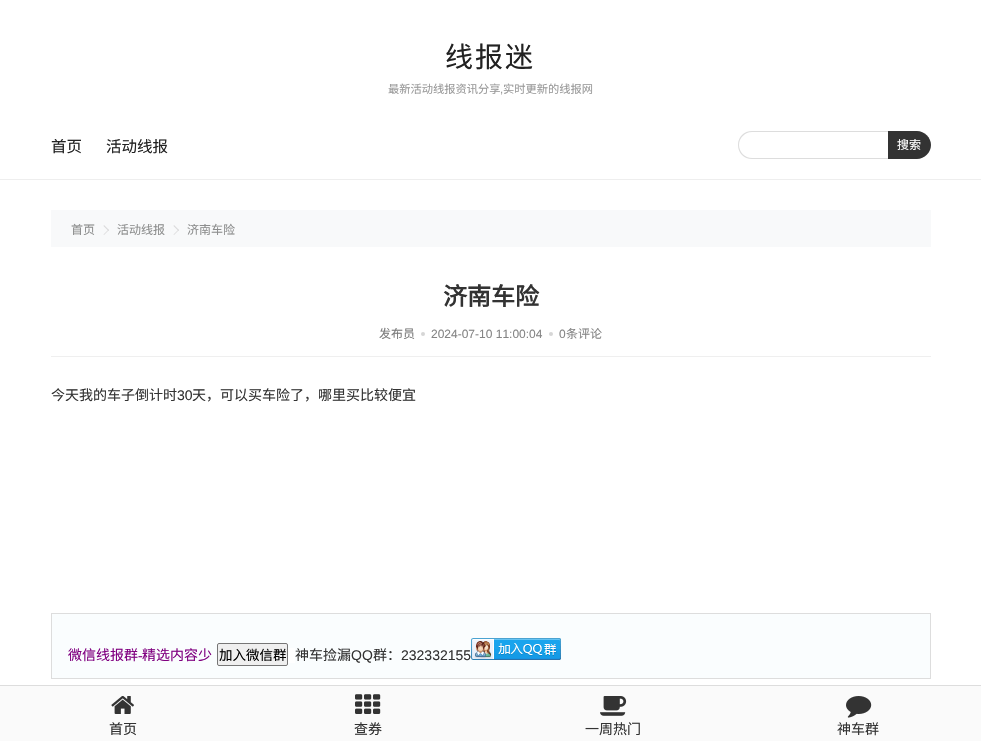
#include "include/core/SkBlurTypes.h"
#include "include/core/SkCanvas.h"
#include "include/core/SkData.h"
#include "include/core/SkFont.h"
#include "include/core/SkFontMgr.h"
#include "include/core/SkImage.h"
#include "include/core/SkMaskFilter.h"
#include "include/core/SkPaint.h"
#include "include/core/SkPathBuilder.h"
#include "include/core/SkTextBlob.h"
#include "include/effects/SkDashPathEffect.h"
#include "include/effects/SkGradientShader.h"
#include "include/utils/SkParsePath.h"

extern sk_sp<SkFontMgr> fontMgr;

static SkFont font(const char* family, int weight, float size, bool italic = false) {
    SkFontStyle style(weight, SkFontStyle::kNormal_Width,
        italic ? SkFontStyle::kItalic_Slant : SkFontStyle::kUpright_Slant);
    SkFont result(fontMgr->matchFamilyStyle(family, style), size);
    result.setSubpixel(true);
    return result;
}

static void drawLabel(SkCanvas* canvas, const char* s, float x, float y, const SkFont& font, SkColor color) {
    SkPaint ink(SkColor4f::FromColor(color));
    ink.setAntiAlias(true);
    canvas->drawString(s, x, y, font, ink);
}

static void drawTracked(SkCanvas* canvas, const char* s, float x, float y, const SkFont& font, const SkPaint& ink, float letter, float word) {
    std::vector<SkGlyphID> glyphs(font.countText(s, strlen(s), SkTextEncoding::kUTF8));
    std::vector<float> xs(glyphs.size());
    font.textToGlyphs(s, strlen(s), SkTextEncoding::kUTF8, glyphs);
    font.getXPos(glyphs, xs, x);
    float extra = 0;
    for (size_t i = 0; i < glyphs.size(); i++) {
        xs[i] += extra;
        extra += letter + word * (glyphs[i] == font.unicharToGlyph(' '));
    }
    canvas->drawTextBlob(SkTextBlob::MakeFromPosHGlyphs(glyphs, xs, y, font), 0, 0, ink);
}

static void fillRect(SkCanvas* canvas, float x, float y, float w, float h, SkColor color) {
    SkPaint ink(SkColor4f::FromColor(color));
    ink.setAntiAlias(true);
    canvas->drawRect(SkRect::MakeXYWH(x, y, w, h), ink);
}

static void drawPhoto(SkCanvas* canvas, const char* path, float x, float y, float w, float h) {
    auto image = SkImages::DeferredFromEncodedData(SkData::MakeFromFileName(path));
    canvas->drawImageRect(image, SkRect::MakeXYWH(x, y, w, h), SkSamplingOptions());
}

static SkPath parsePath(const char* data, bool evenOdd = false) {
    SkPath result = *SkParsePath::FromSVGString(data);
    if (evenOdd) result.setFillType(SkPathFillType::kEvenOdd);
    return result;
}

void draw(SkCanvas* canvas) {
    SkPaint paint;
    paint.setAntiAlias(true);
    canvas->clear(0xFFFFFFFF);
    fillRect(canvas, 0, 179, 981, 1, 0xFFEEEEEE);
    SkFont font1 = font("Noto Sans CJK SC", 400, 28);
    paint.setColor(0xFF222222);
    drawTracked(canvas, "线报迷", 445, 67, font1, paint, 2, 0);
    SkFont font2 = font("Noto Sans CJK SC", 400, 11.25f);
    drawLabel(canvas, "最新活动线报资讯分享", 388, 93, font2, 0xFF999999);
    SkFont font3 = font("Liberation Sans", 400, 11.25f);
    drawLabel(canvas, ",", 500, 93, font3, 0xFF999999);
    drawLabel(canvas, "实时更新的线报网", 503, 93, font2, 0xFF999999);
    SkFont font4 = font("Noto Sans CJK SC", 400, 15.5f);
    drawLabel(canvas, "首页", 51, 152, font4, 0xFF222222);
    drawLabel(canvas, "活动线报", 106, 152, font4, 0xFF222222);
    paint.setColor(0xFFDDDDDD);
    canvas->drawPath(parsePath("M752 131H888V159H752C744 159 738 153 738 145C738 137 744 131 752 131ZM752 132H888V158H752C745 158 739 152 739 145C739 138 745 132 752 132Z", true), paint);
    paint.setColor(0xFF333333);
    canvas->drawPath(parsePath("M888 131H917C924.5 131 931 137.5 931 145C931 152.5 924.5 159 917 159H888Z"), paint);
    SkFont font5 = font("Noto Sans CJK SC", 400, 12);
    drawLabel(canvas, "搜索", 897, 149, font5, 0xFFFFFFFF);
    fillRect(canvas, 51, 210, 880, 37, 0xFFF8F9FA);
    drawLabel(canvas, "首页", 71, 234, font5, 0xFF8D8E8E);
    paint.setColor(0xFFDADADB);
    canvas->drawPath(parsePath("M104 225L109 230L108.5 231L103.5 226Z"), paint);
    canvas->drawPath(parsePath("M108.5 229.5L109 230L104 235L103.5 234.5Z"), paint);
    drawLabel(canvas, "活动线报", 117, 234, font5, 0xFF8D8E8E);
    canvas->drawPath(parsePath("M174 225L179 230L178.5 231L173.5 226Z"), paint);
    canvas->drawPath(parsePath("M178.5 229.5L179 230L174 235L173.5 234.5Z"), paint);
    drawLabel(canvas, "济南车险", 187, 234, font5, 0xFF8D8E8E);
    SkFont font6 = font("Noto Sans CJK SC", 700, 24);
    drawLabel(canvas, "济南车险", 443, 305, font6, 0xFF333333);
    fillRect(canvas, 51, 356, 880, 1, 0xFFEFEFEF);
    drawLabel(canvas, "发布员", 379, 338, font5, 0xFF7A7A7A);
    paint.setColor(0xFFD6D6D6);
    canvas->drawCircle(423, 334, 2, paint);
    SkFont font7 = font("Liberation Sans", 400, 12);
    drawLabel(canvas, "2024-07-10 11:00:04", 431, 338, font7, 0xFF858585);
    canvas->drawCircle(551, 334, 2, paint);
    drawLabel(canvas, "0", 559, 338, font7, 0xFF858585);
    drawLabel(canvas, "条评论", 566, 338, font5, 0xFF858585);
    SkFont font8 = font("Noto Sans CJK SC", 400, 14);
    drawLabel(canvas, "今天我的车子倒计时", 51, 400, font8, 0xFF333333);
    SkFont font9 = font("Liberation Sans", 400, 14);
    drawLabel(canvas, "30", 177, 400, font9, 0xFF333333);
    drawLabel(canvas, "天，可以买车险了，哪里买比较便宜", 192, 400, font8, 0xFF333333);
    paint.setColor(0xFFFAFDFE);
    canvas->drawRect(SkRect::MakeXYWH(51.5f, 613.5f, 879, 65), paint);
    paint.setStroke(true);
    paint.setStrokeWidth(1);
    paint.setColor(0xFFDDDDDD);
    canvas->drawRect(SkRect::MakeXYWH(51.5f, 613.5f, 879, 65), paint);
    drawLabel(canvas, "微信线报群", 68, 660, font8, 0xFF800080);
    SkFont font10 = font("Liberation Serif", 400, 14);
    drawLabel(canvas, "-", 138, 660, font10, 0xFF800080);
    drawLabel(canvas, "精选内容少", 142, 660, font8, 0xFF800080);
    fillRect(canvas, 217, 643, 71, 23, 0xFFFFFFFF);
    fillRect(canvas, 288, 648, 7, 15, 0xFFFFFFFF);
    paint.setStroke(false);
    paint.setColor(0xFFEFEFEF);
    canvas->drawRoundRect(SkRect::MakeXYWH(217.5f, 643.5f, 70, 22), 1.5f, 1.5f, paint);
    paint.setStroke(true);
    paint.setColor(0xFF767676);
    canvas->drawRoundRect(SkRect::MakeXYWH(217.5f, 643.5f, 70, 22), 1.5f, 1.5f, paint);
    SkFont font11 = font("Noto Sans CJK SC", 400, 13.5f);
    drawLabel(canvas, "加入微信群", 219, 660, font11, 0xFF000000);
    drawLabel(canvas, "神车捡漏", 295, 660, font8, 0xFF333333);
    drawLabel(canvas, "QQ", 351, 660, font9, 0xFF333333);
    drawLabel(canvas, "群：", 373, 660, font8, 0xFF333333);
    drawLabel(canvas, "232332155", 401, 660, font9, 0xFF333333);
    drawPhoto(canvas, "assets/img1.png", 471, 638, 90, 22);
    fillRect(canvas, 0, 686, 981, 55, 0xFFFAFAFA);
    fillRect(canvas, 0, 685, 981, 1, 0xFFDDDDDD);
    drawPhoto(canvas, "assets/img2.png", 111, 696, 23, 18);
    drawLabel(canvas, "首页", 109, 734, font8, 0xFF333333);
    drawPhoto(canvas, "assets/img3.png", 355, 694, 26, 20);
    drawLabel(canvas, "查券", 354, 734, font8, 0xFF333333);
    drawPhoto(canvas, "assets/img4.png", 600, 696, 27, 20);
    drawLabel(canvas, "一周热门", 585, 734, font8, 0xFF333333);
    drawPhoto(canvas, "assets/img5.png", 846, 696, 26, 22);
    drawLabel(canvas, "神车群", 837, 734, font8, 0xFF333333);
}
